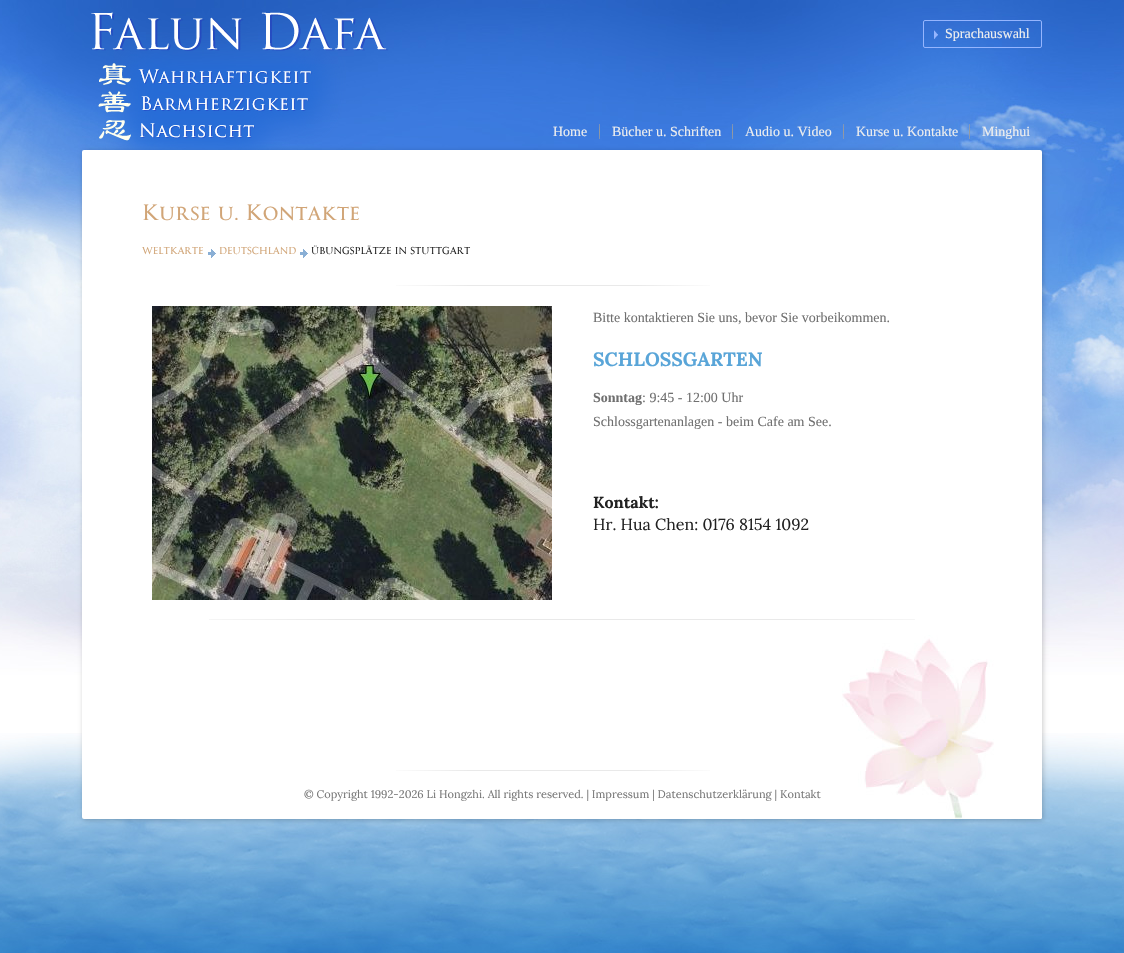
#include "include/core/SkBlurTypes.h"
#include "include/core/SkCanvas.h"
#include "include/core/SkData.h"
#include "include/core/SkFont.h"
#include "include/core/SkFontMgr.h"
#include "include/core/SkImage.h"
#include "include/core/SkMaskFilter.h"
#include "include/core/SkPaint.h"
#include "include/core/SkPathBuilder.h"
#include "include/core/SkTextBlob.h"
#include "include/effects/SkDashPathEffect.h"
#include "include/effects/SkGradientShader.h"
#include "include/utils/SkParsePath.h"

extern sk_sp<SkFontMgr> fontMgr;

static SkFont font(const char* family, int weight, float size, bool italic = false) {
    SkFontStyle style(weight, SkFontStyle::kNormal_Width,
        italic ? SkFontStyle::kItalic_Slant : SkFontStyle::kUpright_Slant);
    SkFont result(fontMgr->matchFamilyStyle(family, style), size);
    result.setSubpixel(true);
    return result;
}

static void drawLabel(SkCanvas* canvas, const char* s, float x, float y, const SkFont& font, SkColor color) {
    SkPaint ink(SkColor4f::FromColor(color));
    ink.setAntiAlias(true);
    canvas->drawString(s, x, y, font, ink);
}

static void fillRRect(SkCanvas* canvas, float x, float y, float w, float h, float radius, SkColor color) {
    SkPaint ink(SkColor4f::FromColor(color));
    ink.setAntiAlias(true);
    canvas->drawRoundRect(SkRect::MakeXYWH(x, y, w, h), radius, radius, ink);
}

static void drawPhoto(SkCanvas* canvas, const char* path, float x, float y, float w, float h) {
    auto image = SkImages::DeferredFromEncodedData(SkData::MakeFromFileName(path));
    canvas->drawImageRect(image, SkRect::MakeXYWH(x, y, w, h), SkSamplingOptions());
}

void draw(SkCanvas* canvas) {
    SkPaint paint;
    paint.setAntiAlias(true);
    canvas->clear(0xFFFFFFFF);
    drawPhoto(canvas, "assets/img1.png", 0, 0, 1124, 675);
    drawPhoto(canvas, "assets/img2.png", 0, 733, 1124, 220);
    paint.setStroke(true);
    paint.setStrokeWidth(1);
    paint.setColor(0xFF95B5FE);
    canvas->drawRoundRect(SkRect::MakeXYWH(923.5f, 20.5f, 118, 27), 1.5f, 1.5f, paint);
    drawPhoto(canvas, "assets/img3.png", 934, 30, 4, 9);
    SkFont font1 = font("Liberation Serif", 400, 14);
    drawLabel(canvas, "Sprachauswahl", 945, 38, font1, 0xFFEEEEEE);
    paint.setStroke(false);
    paint.setColor(0x33000000);
    paint.setMaskFilter(SkMaskFilter::MakeBlur(kNormal_SkBlurStyle, 2.5f));
    canvas->drawRoundRect(SkRect::MakeXYWH(83, 151, 960, 669), 2, 2, paint);
    paint.setMaskFilter(nullptr);
    drawPhoto(canvas, "assets/img4.png", 91, 12, 297, 138);
    drawPhoto(canvas, "assets/img5.png", 599, 124, 1, 15);
    drawLabel(canvas, "Home", 553, 136, font1, 0xFFEEEEEE);
    drawPhoto(canvas, "assets/img6.png", 732, 124, 1, 15);
    drawLabel(canvas, "Bücher u. Schriften", 612, 136, font1, 0xFFEEEEEE);
    drawPhoto(canvas, "assets/img7.png", 843, 124, 1, 15);
    drawLabel(canvas, "Audio u. Video", 745, 136, font1, 0xFFEEEEEE);
    drawPhoto(canvas, "assets/img8.png", 969, 124, 1, 15);
    drawLabel(canvas, "Kurse u. Kontakte", 856, 136, font1, 0xFFEEEEEE);
    drawLabel(canvas, "Minghui", 982, 136, font1, 0xFFEEEEEE);
    fillRRect(canvas, 82, 150, 960, 669, 2, 0xFFFFFFFF);
    drawPhoto(canvas, "assets/img9.png", 842, 635, 200, 184);
    drawPhoto(canvas, "assets/img10.png", 396, 285, 314, 1);
    SkFont font2 = font("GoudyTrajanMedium", 500, 22);
    drawLabel(canvas, "Kurse u. Kontakte", 142, 220, font2, 0xFFD1A577);
    SkFont font3 = font("GoudyTrajanMedium", 500, 10);
    drawLabel(canvas, "WELTKARTE", 142, 254, font3, 0xFFD1A577);
    drawPhoto(canvas, "assets/img11.png", 208, 249, 8, 9);
    drawLabel(canvas, "DEUTSCHLAND", 219, 254, font3, 0xFFD1A577);
    drawPhoto(canvas, "assets/img11.png", 300, 249, 8, 9);
    drawLabel(canvas, "ÜBUNGSPLÄTZE IN STUTTGART", 311, 254, font3, 0xFF222222);
    drawPhoto(canvas, "assets/img12.png", 209, 619, 706, 1);
    drawPhoto(canvas, "assets/img13.png", 152, 306, 400, 294);
    drawLabel(canvas, "Bitte kontaktieren Sie uns, bevor Sie vorbeikommen.", 593, 322, font1, 0xFF707070);
    SkFont font4 = font("Lora", 700, 19.25f);
    drawLabel(canvas, "SCHLOSSGARTEN", 593, 366, font4, 0xFF59A5D8);
    SkFont font5 = font("Liberation Serif", 700, 14);
    drawLabel(canvas, "Sonntag", 593, 402, font5, 0xFF707070);
    drawLabel(canvas, ": 9:45 - 12:00 Uhr", 642, 402, font1, 0xFF707070);
    drawLabel(canvas, "Schlossgartenanlagen - beim Cafe am See.", 593, 426, font1, 0xFF707070);
    SkFont font6 = font("Lora", 700, 16);
    drawLabel(canvas, "Kontakt:", 593, 508, font6, 0xFF222222);
    SkFont font7 = font("Lora", 400, 16);
    drawLabel(canvas, "Hr. Hua Chen: 0176 8154 1092", 593, 530, font7, 0xFF222222);
    drawPhoto(canvas, "assets/img10.png", 396, 770, 314, 1);
    SkFont font8 = font("Lora", 400, 11);
    drawLabel(canvas, "© Copyright 1992-2026 Li Hongzhi. All rights reserved. | Impressum | Datenschutzerklärung | Kontakt", 304, 798, font8, 0xFF777777);
}
